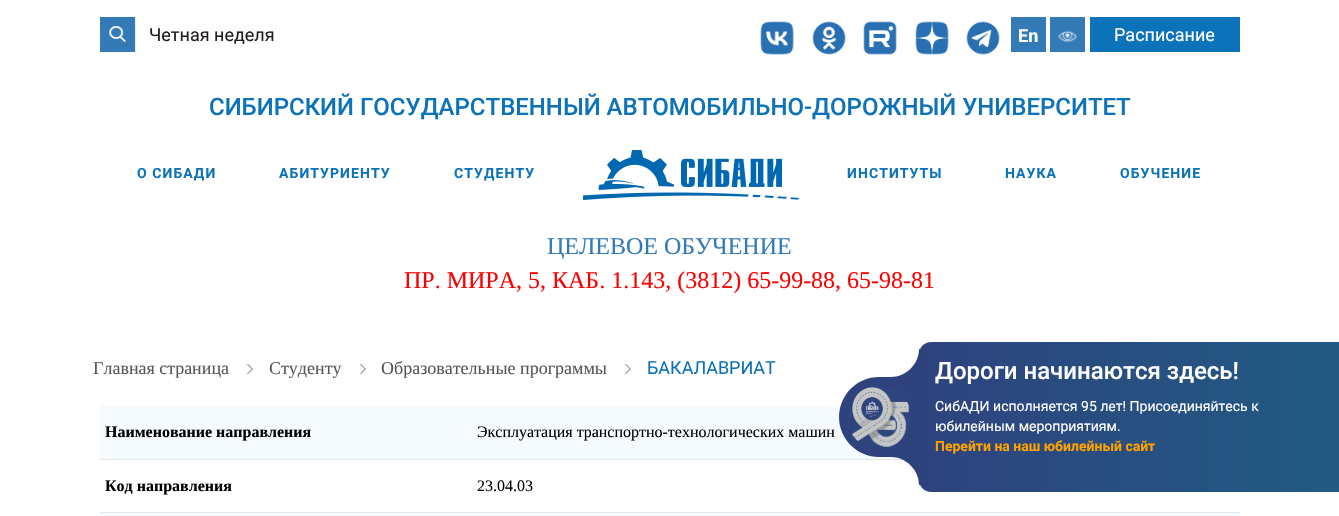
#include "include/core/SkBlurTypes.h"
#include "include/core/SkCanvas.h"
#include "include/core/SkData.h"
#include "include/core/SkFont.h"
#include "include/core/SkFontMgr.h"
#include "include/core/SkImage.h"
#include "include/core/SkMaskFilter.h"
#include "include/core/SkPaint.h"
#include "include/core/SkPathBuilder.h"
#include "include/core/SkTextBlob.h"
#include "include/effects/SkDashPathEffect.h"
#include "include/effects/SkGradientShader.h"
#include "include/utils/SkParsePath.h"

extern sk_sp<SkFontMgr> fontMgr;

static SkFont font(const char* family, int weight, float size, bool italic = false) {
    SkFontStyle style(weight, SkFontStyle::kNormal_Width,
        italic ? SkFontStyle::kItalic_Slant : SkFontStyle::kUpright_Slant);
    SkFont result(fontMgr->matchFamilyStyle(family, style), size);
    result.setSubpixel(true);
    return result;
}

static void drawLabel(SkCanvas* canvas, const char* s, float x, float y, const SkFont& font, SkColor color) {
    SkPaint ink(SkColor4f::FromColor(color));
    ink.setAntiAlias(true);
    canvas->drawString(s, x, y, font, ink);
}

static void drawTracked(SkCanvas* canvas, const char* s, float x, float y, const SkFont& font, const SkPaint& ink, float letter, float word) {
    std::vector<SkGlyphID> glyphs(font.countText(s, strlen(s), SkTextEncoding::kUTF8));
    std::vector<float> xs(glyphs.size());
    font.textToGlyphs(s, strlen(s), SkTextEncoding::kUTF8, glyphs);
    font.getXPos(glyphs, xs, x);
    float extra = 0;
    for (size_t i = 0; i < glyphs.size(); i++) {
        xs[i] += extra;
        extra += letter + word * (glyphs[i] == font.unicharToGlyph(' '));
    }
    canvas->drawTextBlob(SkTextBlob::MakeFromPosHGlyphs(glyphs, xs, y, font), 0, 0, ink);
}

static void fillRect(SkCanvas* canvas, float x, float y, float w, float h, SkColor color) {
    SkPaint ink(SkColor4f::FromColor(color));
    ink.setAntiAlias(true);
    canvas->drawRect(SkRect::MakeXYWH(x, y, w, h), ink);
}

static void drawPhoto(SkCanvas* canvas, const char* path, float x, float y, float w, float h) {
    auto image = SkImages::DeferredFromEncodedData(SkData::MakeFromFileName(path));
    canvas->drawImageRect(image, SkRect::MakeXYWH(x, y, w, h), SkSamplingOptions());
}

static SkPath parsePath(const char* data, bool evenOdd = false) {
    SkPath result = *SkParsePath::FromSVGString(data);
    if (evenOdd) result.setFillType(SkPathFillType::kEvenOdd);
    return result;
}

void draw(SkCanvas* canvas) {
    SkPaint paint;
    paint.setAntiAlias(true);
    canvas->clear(0xFFFFFFFF);
    fillRect(canvas, 100, 17, 35, 35, 0xFF337AB7);
    drawPhoto(canvas, "assets/img1.png", 109, 26, 17, 16);
    fillRect(canvas, 135, 17, 1, 35, 0xFFEEEEEE);
    SkFont font1 = font("Roboto", 400, 18);
    drawLabel(canvas, "Четная неделя", 149, 41, font1, 0xFF231E1E);
    drawPhoto(canvas, "assets/img2.png", 760, 21, 34, 34);
    drawPhoto(canvas, "assets/img3.png", 812, 21, 34, 34);
    drawPhoto(canvas, "assets/img4.png", 863, 21, 34, 34);
    drawPhoto(canvas, "assets/img5.png", 915, 21, 34, 34);
    drawPhoto(canvas, "assets/img6.png", 966, 21, 34, 34);
    fillRect(canvas, 1011, 17, 35, 35, 0xFF337AB7);
    SkFont font2 = font("Roboto", 700, 18);
    drawLabel(canvas, "En", 1018, 42, font2, 0xFFFFFFFF);
    fillRect(canvas, 1050, 17, 35, 35, 0xFF337AB7);
    drawPhoto(canvas, "assets/img7.png", 1058, 30, 19, 13);
    fillRect(canvas, 1090, 17, 150, 35, 0xFF0C72B9);
    drawLabel(canvas, "Расписание", 1114, 41, font1, 0xFFFFFFFF);
    SkFont font3 = font("Roboto", 500, 24);
    drawLabel(canvas, "CИБИРСКИЙ ГОСУДАРСТВЕННЫЙ АВТОМОБИЛЬНО-ДОРОЖНЫЙ УНИВЕРСИТЕТ", 209, 115, font3, 0xFF0C72B9);
    SkFont font4 = font("Roboto", 700, 14);
    paint.setColor(0xFF0C72B9);
    drawTracked(canvas, "О СИБАДИ", 137, 178, font4, paint, 1.1f, 0);
    drawTracked(canvas, "АБИТУРИЕНТУ", 279, 178, font4, paint, 1.1f, 0);
    drawTracked(canvas, "СТУДЕНТУ", 454, 178, font4, paint, 1.1f, 0);
    drawPhoto(canvas, "assets/img8.png", 583, 150, 216, 50);
    drawTracked(canvas, "ИНСТИТУТЫ", 847, 178, font4, paint, 1.1f, 0);
    drawTracked(canvas, "НАУКА", 1005, 178, font4, paint, 1.1f, 0);
    drawTracked(canvas, "ОБУЧЕНИЕ", 1120, 178, font4, paint, 1.1f, 0);
    SkFont font5 = font("Liberation Serif", 400, 24);
    drawLabel(canvas, "ЦЕЛЕВОЕ ОБУЧЕНИЕ", 547, 254, font5, 0xFF337AB7);
    drawLabel(canvas, "ПР. МИРА, 5, КАБ. 1.143, (3812) 65-99-88, 65-98-81", 404, 288, font5, 0xFFFF0000);
    SkFont font6 = font("Liberation Serif", 400, 18);
    drawLabel(canvas, "Главная страница", 93, 374, font6, 0xFF565656);
    drawPhoto(canvas, "assets/img9.png", 247, 364, 6, 10);
    drawLabel(canvas, "Студенту", 269, 374, font6, 0xFF565656);
    drawPhoto(canvas, "assets/img10.png", 360, 364, 6, 10);
    drawLabel(canvas, "Образовательные программы", 381, 374, font6, 0xFF565656);
    drawPhoto(canvas, "assets/img9.png", 625, 364, 6, 10);
    drawLabel(canvas, "БАКАЛАВРИАТ", 647, 374, font1, 0xFF0C72B9);
    fillRect(canvas, 100, 406, 801, 53, 0xFFF5FAFF);
    SkFont font7 = font("Liberation Serif", 700, 16);
    drawLabel(canvas, "Наименование направления", 105, 437, font7, 0xFF000000);
    fillRect(canvas, 99, 459, 805, 1, 0xFFE8E8E8);
    SkFont font8 = font("Liberation Serif", 400, 16);
    drawLabel(canvas, "Эксплуатация транспортно-технологических машин", 477, 437, font8, 0xFF000000);
    drawLabel(canvas, "Код направления", 105, 491, font7, 0xFF000000);
    fillRect(canvas, 99, 512, 1141, 1, 0xFFE8E8E8);
    drawLabel(canvas, "23.04.03", 477, 491, font8, 0xFF000000);
    fillRect(canvas, 100, 513, 1140, 3, 0xFFF5FAFF);
    paint.setColor(0xFF2E437E);
    canvas->drawPath(parsePath("M919 349C919 364 906 377 891 377C891 392 904 405 919 405C934 405 947 392 947 377C947 362 934 349 919 349Z"), paint);
    canvas->drawPath(parsePath("M919 429C904 429 891 442 891 457C906 457 919 470 919 485C934 485 947 472 947 457C947 442 934 429 919 429Z"), paint);
    canvas->drawPath(parsePath("M879 377H903C912 377 919 384 919 393V441C919 450 912 457 903 457H879C857 457 839 439 839 417C839 395 857 377 879 377Z"), paint);
    drawPhoto(canvas, "assets/img11.png", 852, 387, 57, 60);
    {
        const SkColor colors[] = {0xFF2E437E, 0xFF215B83};
        const float stops[] = {0, 1};
        const SkPoint ends[] = {{919, 417}, {1339, 417}};
        paint.setShader(SkGradientShader::MakeLinear(ends, colors, stops, 2, SkTileMode::kClamp));
        paint.setAlpha(255);
    }
    canvas->drawPath(parsePath("M931 342H1339V492H931C924.5 492 919 486.5 919 480V354C919 347.5 924.5 342 931 342Z"), paint);
    drawLabel(canvas, "Дороги начинаются здесь!", 935, 379, font3, 0xFFFFFFFF);
    SkFont font9 = font("Roboto", 400, 14);
    drawLabel(canvas, "СибАДИ исполняется 95 лет! Присоединяйтесь к", 935, 411, font9, 0xFFFFFFFF);
    drawLabel(canvas, "юбилейным мероприятиям.", 935, 431, font9, 0xFFFFFFFF);
    drawLabel(canvas, "Перейти на наш юбилейный сайт", 935, 451, font4, 0xFFFFA200);
}
